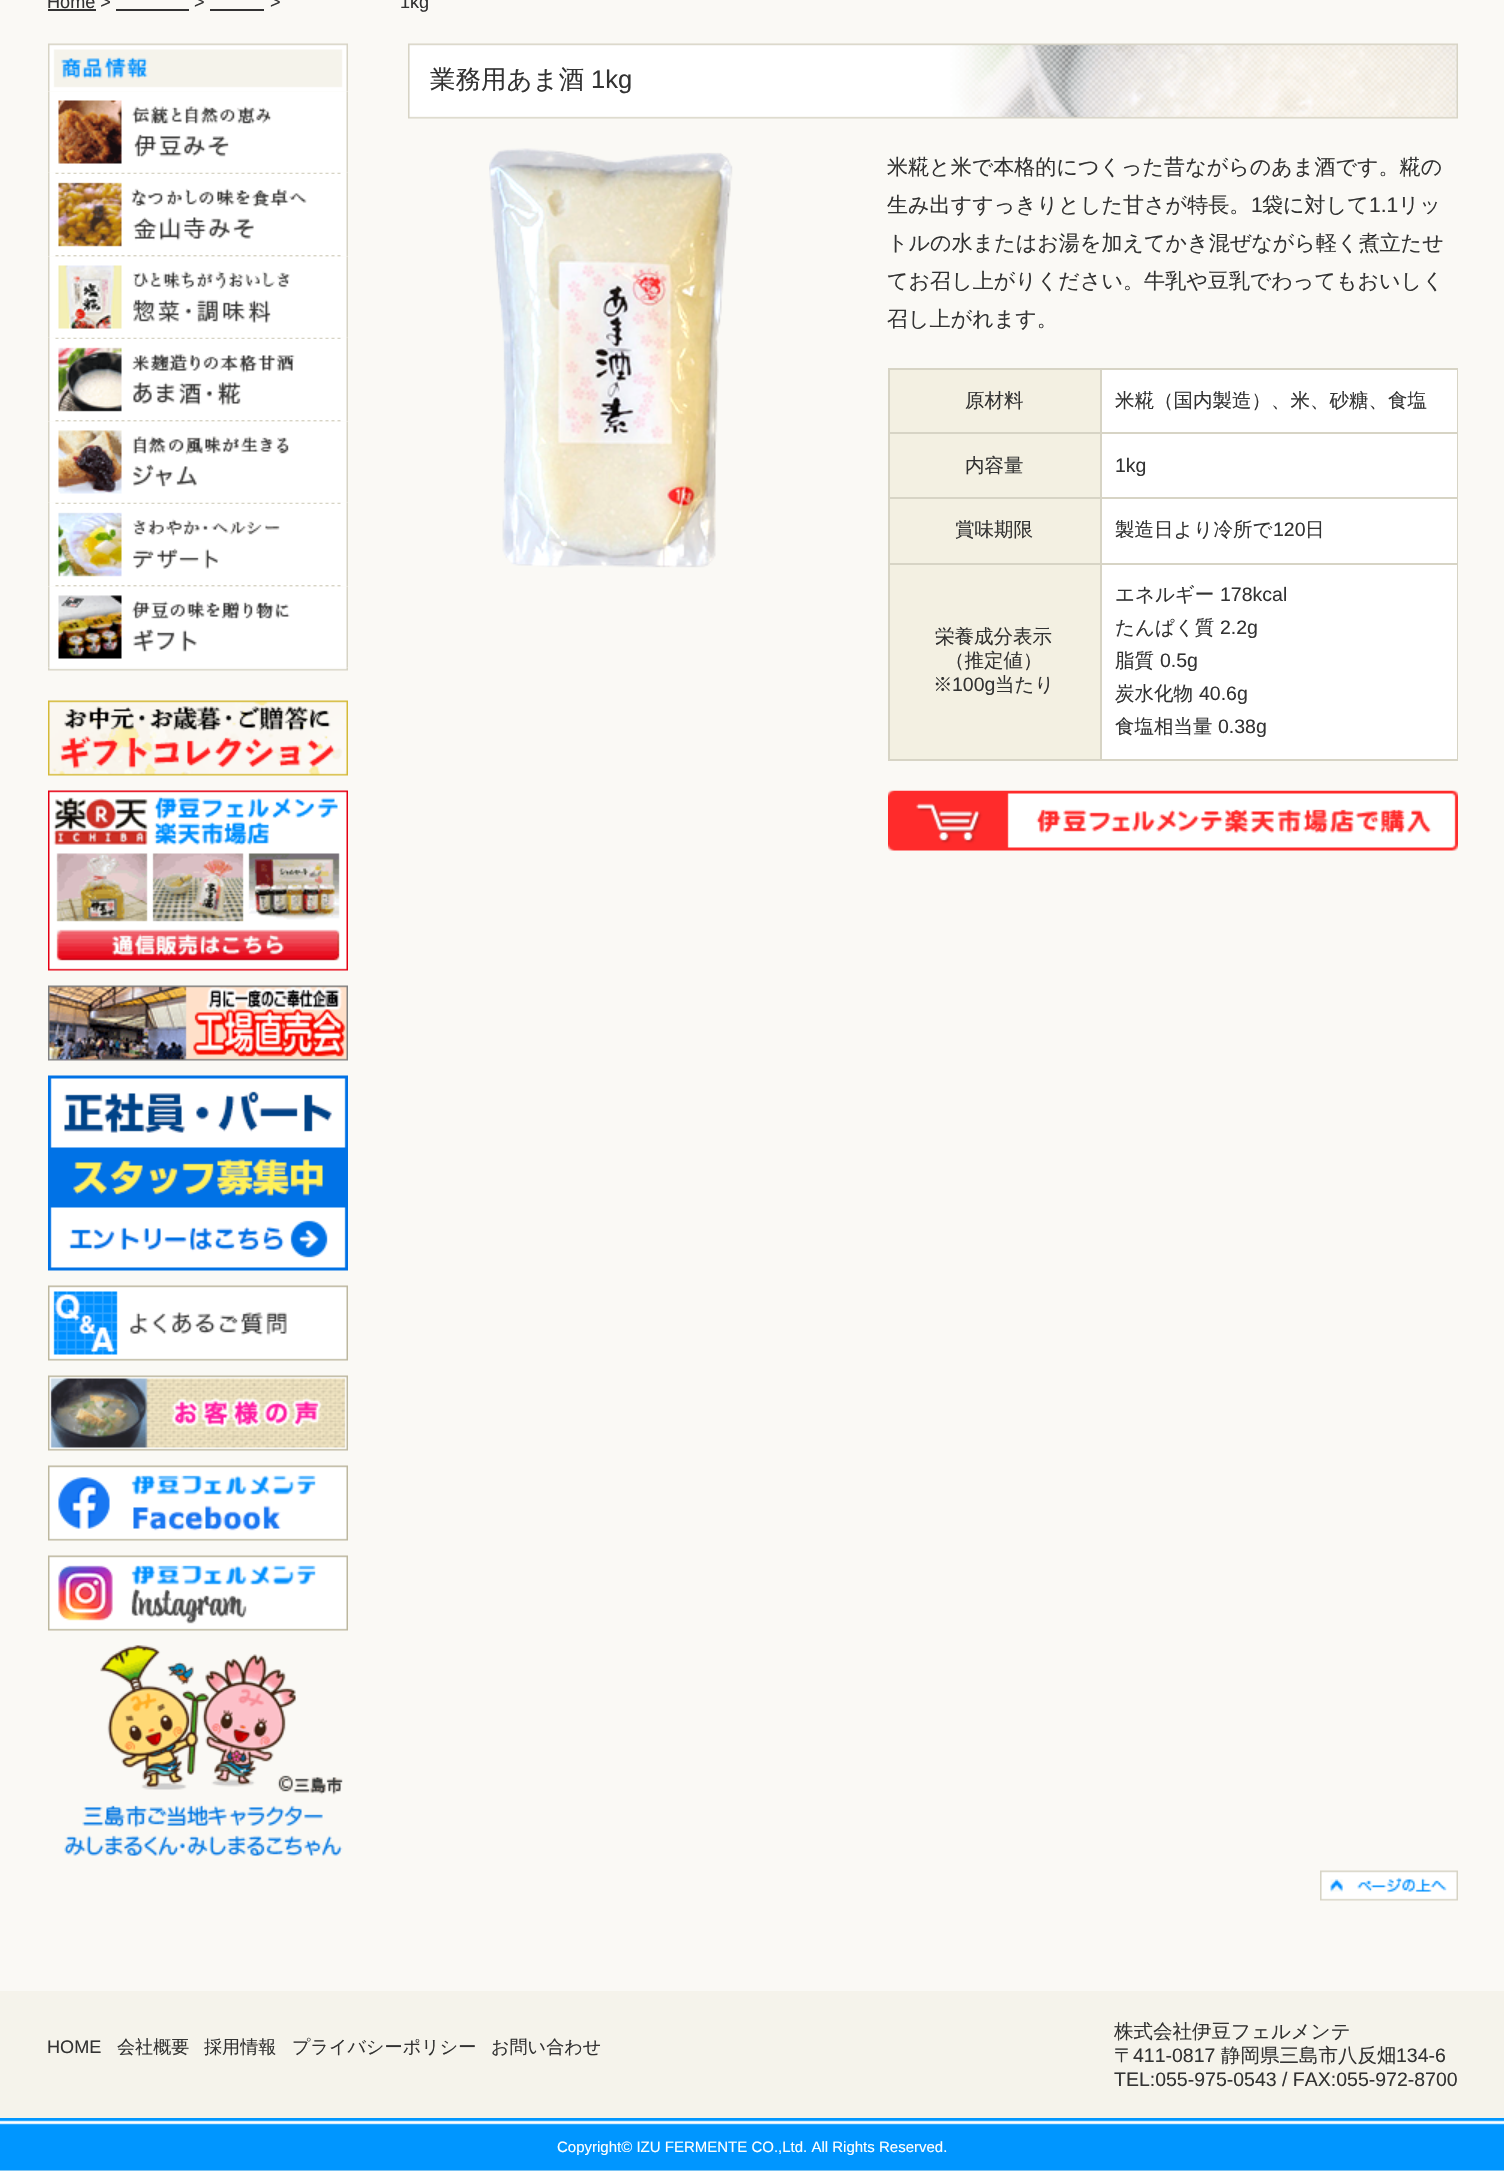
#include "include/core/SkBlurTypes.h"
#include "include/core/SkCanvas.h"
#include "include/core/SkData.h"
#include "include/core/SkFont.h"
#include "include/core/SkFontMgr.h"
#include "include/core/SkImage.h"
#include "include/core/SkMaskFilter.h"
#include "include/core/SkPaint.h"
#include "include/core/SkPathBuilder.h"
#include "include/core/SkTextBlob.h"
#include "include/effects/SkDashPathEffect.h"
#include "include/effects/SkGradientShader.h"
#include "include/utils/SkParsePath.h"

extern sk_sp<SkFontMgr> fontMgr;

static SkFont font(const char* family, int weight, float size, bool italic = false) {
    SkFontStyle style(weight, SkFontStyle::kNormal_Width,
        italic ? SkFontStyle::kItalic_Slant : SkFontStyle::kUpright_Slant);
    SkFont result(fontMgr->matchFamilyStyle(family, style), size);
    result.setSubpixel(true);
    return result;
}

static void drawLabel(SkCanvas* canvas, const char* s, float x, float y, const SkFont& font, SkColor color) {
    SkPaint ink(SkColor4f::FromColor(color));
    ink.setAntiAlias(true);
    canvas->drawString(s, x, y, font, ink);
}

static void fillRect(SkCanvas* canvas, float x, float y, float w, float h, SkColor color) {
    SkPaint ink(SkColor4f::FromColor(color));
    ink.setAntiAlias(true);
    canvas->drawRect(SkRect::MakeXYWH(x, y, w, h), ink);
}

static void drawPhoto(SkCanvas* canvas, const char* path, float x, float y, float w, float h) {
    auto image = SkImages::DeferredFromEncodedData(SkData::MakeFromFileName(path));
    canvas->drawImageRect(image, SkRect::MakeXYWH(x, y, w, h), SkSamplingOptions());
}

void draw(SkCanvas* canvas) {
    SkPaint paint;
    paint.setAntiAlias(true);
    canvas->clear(0xFFFAF9F5);
    SkFont font1 = font("Liberation Sans", 400, 18.1f);
    drawLabel(canvas, "Home >", 47, 8, font1, 0xFF333333);
    fillRect(canvas, 48, 9, 48, 2, 0xFF333333);
    fillRect(canvas, 116, 9, 73, 2, 0xFF333333);
    drawLabel(canvas, ">", 194, 8, font1, 0xFF333333);
    fillRect(canvas, 210, 9, 54, 2, 0xFF333333);
    drawLabel(canvas, ">", 270, 8, font1, 0xFF333333);
    drawLabel(canvas, "1kg", 400, 8, font1, 0xFF333333);
    drawPhoto(canvas, "assets/img1.png", 48, 43, 300, 49);
    drawPhoto(canvas, "assets/img2.png", 48, 667, 300, 4);
    drawPhoto(canvas, "assets/img3.png", 48, 172, 300, 2);
    drawPhoto(canvas, "assets/img4.png", 48, 91, 300, 82);
    drawPhoto(canvas, "assets/img5.png", 48, 255, 300, 2);
    drawPhoto(canvas, "assets/img6.png", 48, 174, 300, 81);
    drawPhoto(canvas, "assets/img3.png", 48, 337, 300, 2);
    drawPhoto(canvas, "assets/img7.png", 48, 256, 300, 82);
    drawPhoto(canvas, "assets/img5.png", 48, 420, 300, 2);
    drawPhoto(canvas, "assets/img8.png", 48, 339, 300, 81);
    drawPhoto(canvas, "assets/img3.png", 48, 502, 300, 2);
    drawPhoto(canvas, "assets/img9.png", 48, 421, 300, 82);
    drawPhoto(canvas, "assets/img5.png", 48, 585, 300, 2);
    drawPhoto(canvas, "assets/img10.png", 48, 504, 300, 81);
    drawPhoto(canvas, "assets/img11.png", 48, 586, 300, 82);
    drawPhoto(canvas, "assets/img12.png", 48, 700, 300, 76);
    drawPhoto(canvas, "assets/img13.png", 48, 790, 300, 181);
    drawPhoto(canvas, "assets/img14.png", 48, 985, 300, 76);
    drawPhoto(canvas, "assets/img15.png", 48, 1075, 300, 196);
    drawPhoto(canvas, "assets/img16.png", 48, 1285, 300, 76);
    drawPhoto(canvas, "assets/img17.png", 48, 1375, 300, 76);
    drawPhoto(canvas, "assets/img18.png", 48, 1465, 300, 76);
    drawPhoto(canvas, "assets/img19.png", 48, 1555, 300, 76);
    drawPhoto(canvas, "assets/img20.png", 64, 1645, 279, 211);
    drawPhoto(canvas, "assets/img21.png", 408, 43, 1050, 76);
    SkFont font2 = font("WenQuanYi Zen Hei", 500, 25.5f);
    drawLabel(canvas, "業務用あま酒", 430, 88, font2, 0xFF333333);
    SkFont font3 = font("Liberation Sans", 400, 25.5f);
    drawLabel(canvas, "1kg", 591, 88, font3, 0xFF333333);
    drawPhoto(canvas, "assets/img22.png", 489, 148, 244, 420);
    SkFont font4 = font("WenQuanYi Zen Hei", 500, 21.05f);
    drawLabel(canvas, "米糀と米で本格的につくった昔ながらのあま酒です。糀の", 887, 174, font4, 0xFF333333);
    drawLabel(canvas, "生み出すすっきりとした甘さが特長。", 887, 212, font4, 0xFF333333);
    SkFont font5 = font("Liberation Sans", 400, 21.05f);
    drawLabel(canvas, "1", 1251, 212, font5, 0xFF333333);
    drawLabel(canvas, "袋に対して", 1262, 212, font4, 0xFF333333);
    drawLabel(canvas, "1.1", 1369, 212, font5, 0xFF333333);
    drawLabel(canvas, "リッ", 1398, 212, font4, 0xFF333333);
    drawLabel(canvas, "トルの水またはお湯を加えてかき混ぜながら軽く煮立たせ", 887, 250, font4, 0xFF333333);
    drawLabel(canvas, "てお召し上がりください。牛乳や豆乳でわってもおいしく", 887, 288, font4, 0xFF333333);
    drawLabel(canvas, "召し上がれます。", 887, 326, font4, 0xFF333333);
    fillRect(canvas, 890, 370, 210, 62, 0xFFF3F0E2);
    fillRect(canvas, 1100, 368, 358, 2, 0xFFD7D4C5);
    fillRect(canvas, 1100, 432, 358, 2, 0xFFD7D4C5);
    fillRect(canvas, 1100, 497, 358, 2, 0xFFD7D4C5);
    fillRect(canvas, 1100, 563, 358, 2, 0xFFD7D4C5);
    fillRect(canvas, 1457, 563, 1, 198, 0xFFD7D4C5);
    fillRect(canvas, 1100, 759, 358, 2, 0xFFD7D4C5);
    fillRect(canvas, 1100, 563, 2, 198, 0xFFD7D4C5);
    fillRect(canvas, 888, 563, 213, 2, 0xFFD7D4C5);
    fillRect(canvas, 1100, 497, 2, 67, 0xFFD7D4C5);
    fillRect(canvas, 888, 497, 213, 2, 0xFFD7D4C5);
    fillRect(canvas, 1100, 432, 2, 66, 0xFFD7D4C5);
    fillRect(canvas, 888, 432, 213, 2, 0xFFD7D4C5);
    fillRect(canvas, 1100, 368, 2, 66, 0xFFD7D4C5);
    fillRect(canvas, 888, 368, 213, 2, 0xFFD7D4C5);
    fillRect(canvas, 888, 759, 213, 2, 0xFFD7D4C5);
    fillRect(canvas, 888, 563, 2, 198, 0xFFD7D4C5);
    fillRect(canvas, 888, 497, 2, 67, 0xFFD7D4C5);
    fillRect(canvas, 888, 432, 2, 66, 0xFFD7D4C5);
    fillRect(canvas, 888, 368, 2, 66, 0xFFD7D4C5);
    SkFont font6 = font("WenQuanYi Zen Hei", 500, 19.5f);
    drawLabel(canvas, "原材料", 965, 407, font6, 0xFF333333);
    fillRect(canvas, 1102, 370, 355, 62, 0xFFFFFFFF);
    fillRect(canvas, 1457, 497, 1, 67, 0xFFD7D4C5);
    fillRect(canvas, 1457, 432, 1, 66, 0xFFD7D4C5);
    fillRect(canvas, 1457, 368, 1, 66, 0xFFD7D4C5);
    drawLabel(canvas, "米糀（国内製造）、米、砂糖、食塩", 1115, 407, font6, 0xFF333333);
    fillRect(canvas, 890, 434, 210, 63, 0xFFF3F0E2);
    drawLabel(canvas, "内容量", 965, 472, font6, 0xFF333333);
    fillRect(canvas, 1102, 434, 355, 63, 0xFFFFFFFF);
    SkFont font7 = font("Liberation Sans", 400, 19.5f);
    drawLabel(canvas, "1kg", 1115, 472, font7, 0xFF333333);
    fillRect(canvas, 890, 499, 210, 64, 0xFFF3F0E2);
    drawLabel(canvas, "賞味期限", 955, 536, font6, 0xFF333333);
    fillRect(canvas, 1102, 499, 355, 64, 0xFFFFFFFF);
    drawLabel(canvas, "製造日より冷所で", 1115, 536, font6, 0xFF333333);
    drawLabel(canvas, "120", 1273, 536, font7, 0xFF333333);
    drawLabel(canvas, "日", 1305, 536, font6, 0xFF333333);
    fillRect(canvas, 890, 565, 210, 194, 0xFFF3F0E2);
    drawLabel(canvas, "栄養成分表示", 935, 643, font6, 0xFF333333);
    drawLabel(canvas, "（推定値）", 945, 667, font6, 0xFF333333);
    drawLabel(canvas, "※", 933, 691, font6, 0xFF333333);
    drawLabel(canvas, "100g", 952, 691, font7, 0xFF333333);
    drawLabel(canvas, "当たり", 995, 691, font6, 0xFF333333);
    fillRect(canvas, 1102, 565, 355, 194, 0xFFFFFFFF);
    drawLabel(canvas, "エネルギー", 1115, 601, font6, 0xFF333333);
    drawLabel(canvas, "178kcal", 1220, 601, font7, 0xFF333333);
    drawLabel(canvas, "たんぱく質", 1115, 634, font6, 0xFF333333);
    drawLabel(canvas, "2.2g", 1220, 634, font7, 0xFF333333);
    drawLabel(canvas, "脂質", 1115, 667, font6, 0xFF333333);
    drawLabel(canvas, "0.5g", 1160, 667, font7, 0xFF333333);
    drawLabel(canvas, "炭水化物", 1115, 700, font6, 0xFF333333);
    drawLabel(canvas, "40.6g", 1199, 700, font7, 0xFF333333);
    drawLabel(canvas, "食塩相当量", 1115, 733, font6, 0xFF333333);
    drawLabel(canvas, "0.38g", 1218, 733, font7, 0xFF333333);
    drawPhoto(canvas, "assets/img23.png", 888, 790, 570, 61);
    drawPhoto(canvas, "assets/img24.png", 1320, 1870, 138, 31);
    fillRect(canvas, 0, 1991, 1504, 180, 0xFFF5F3EB);
    drawPhoto(canvas, "assets/img25.png", 0, 2118, 1504, 53);
    drawLabel(canvas, "HOME", 47, 2053, font1, 0xFF333333);
    SkFont font8 = font("WenQuanYi Zen Hei", 500, 18.1f);
    drawLabel(canvas, "会社概要", 117, 2053, font8, 0xFF333333);
    drawLabel(canvas, "採用情報", 204, 2053, font8, 0xFF333333);
    drawLabel(canvas, "プライバシーポリシー", 292, 2053, font8, 0xFF333333);
    drawLabel(canvas, "お問い合わせ", 491, 2053, font8, 0xFF333333);
    drawLabel(canvas, "株式会社伊豆フェルメンテ", 1114, 2038, font6, 0xFF333333);
    drawLabel(canvas, "〒", 1114, 2062, font6, 0xFF333333);
    drawLabel(canvas, "411-0817", 1133, 2062, font7, 0xFF333333);
    drawLabel(canvas, "静岡県三島市八反畑", 1221, 2062, font6, 0xFF333333);
    drawLabel(canvas, "134-6", 1396, 2062, font7, 0xFF333333);
    drawLabel(canvas, "TEL:055-975-0543 / FAX:055-972-8700", 1114, 2086, font7, 0xFF333333);
    SkFont font9 = font("Liberation Sans", 400, 15);
    drawLabel(canvas, "Copyright© IZU FERMENTE CO.,Ltd. All Rights Reserved.", 557, 2152, font9, 0xFFFFFFFF);
}
